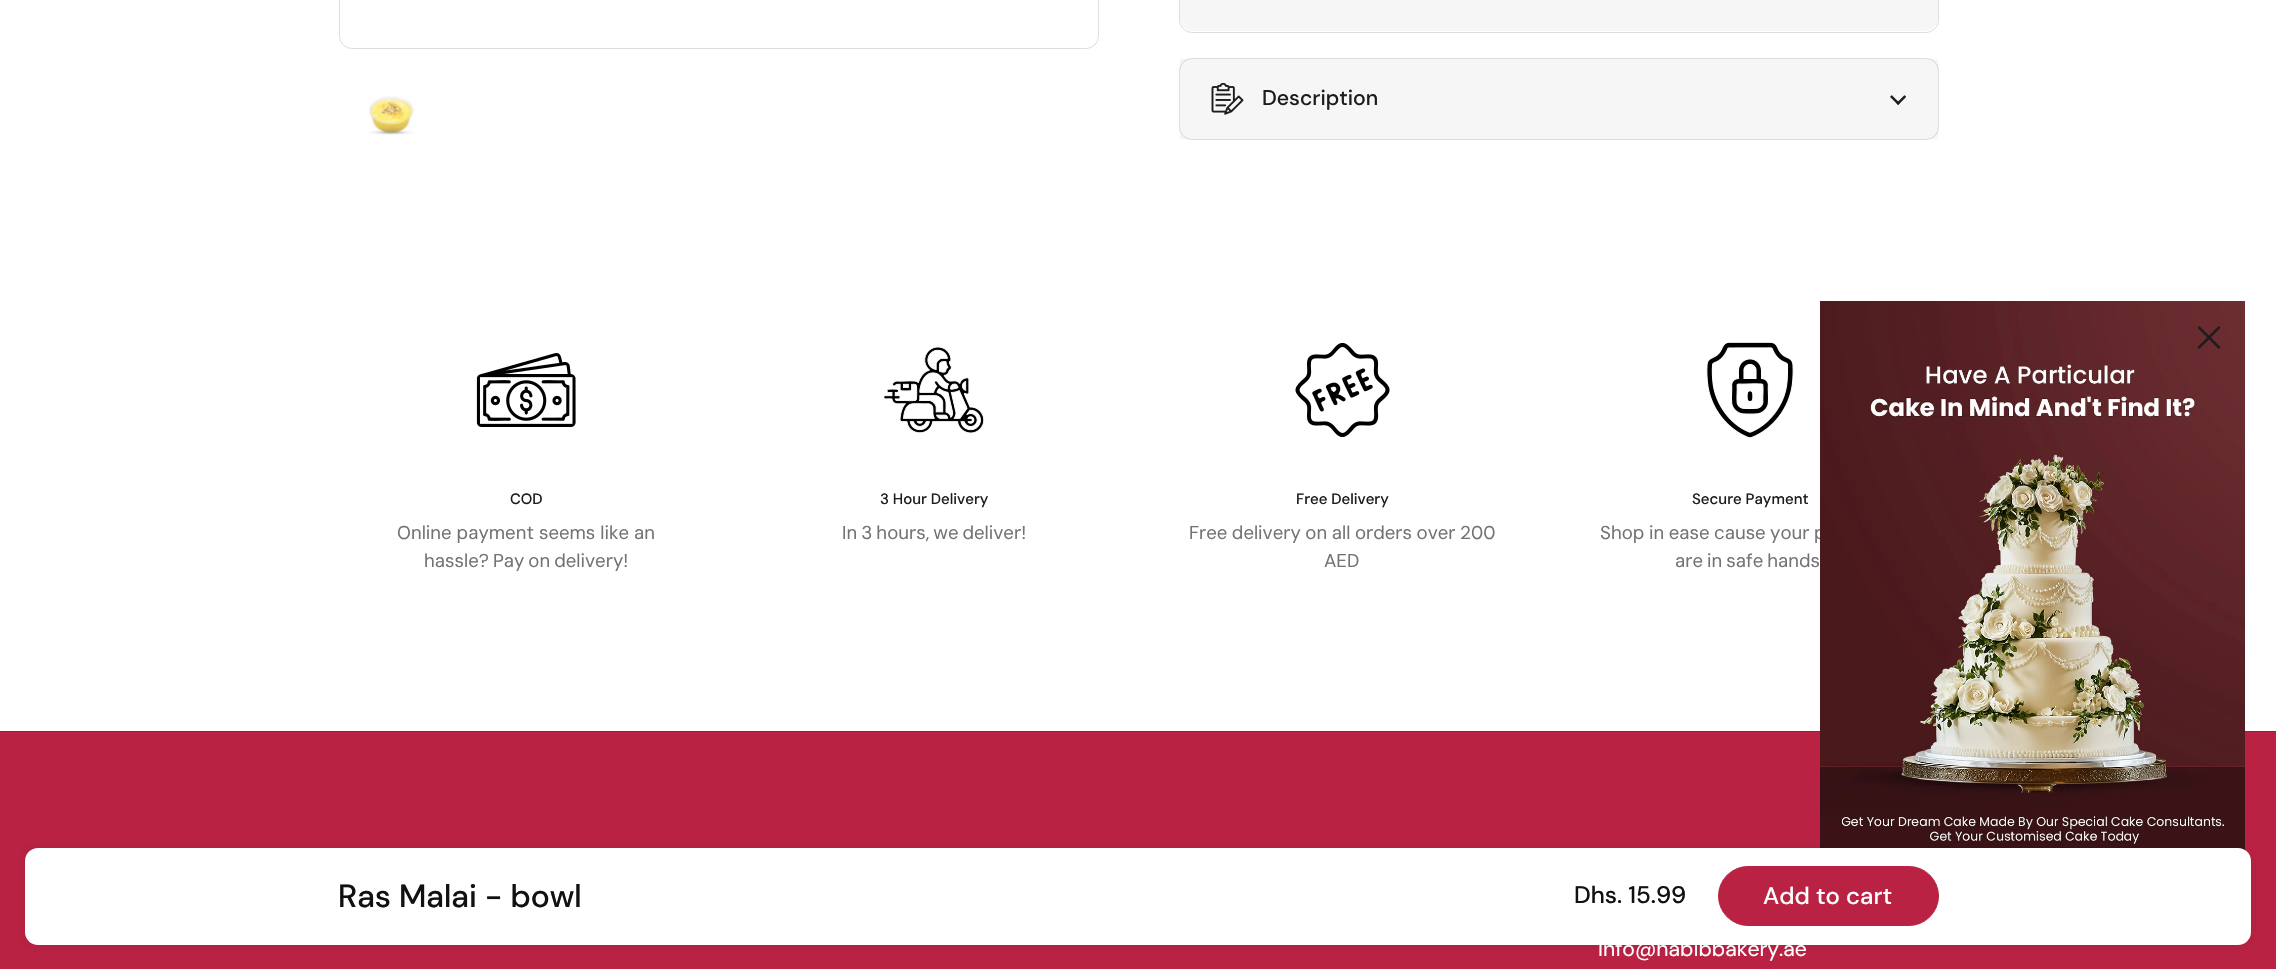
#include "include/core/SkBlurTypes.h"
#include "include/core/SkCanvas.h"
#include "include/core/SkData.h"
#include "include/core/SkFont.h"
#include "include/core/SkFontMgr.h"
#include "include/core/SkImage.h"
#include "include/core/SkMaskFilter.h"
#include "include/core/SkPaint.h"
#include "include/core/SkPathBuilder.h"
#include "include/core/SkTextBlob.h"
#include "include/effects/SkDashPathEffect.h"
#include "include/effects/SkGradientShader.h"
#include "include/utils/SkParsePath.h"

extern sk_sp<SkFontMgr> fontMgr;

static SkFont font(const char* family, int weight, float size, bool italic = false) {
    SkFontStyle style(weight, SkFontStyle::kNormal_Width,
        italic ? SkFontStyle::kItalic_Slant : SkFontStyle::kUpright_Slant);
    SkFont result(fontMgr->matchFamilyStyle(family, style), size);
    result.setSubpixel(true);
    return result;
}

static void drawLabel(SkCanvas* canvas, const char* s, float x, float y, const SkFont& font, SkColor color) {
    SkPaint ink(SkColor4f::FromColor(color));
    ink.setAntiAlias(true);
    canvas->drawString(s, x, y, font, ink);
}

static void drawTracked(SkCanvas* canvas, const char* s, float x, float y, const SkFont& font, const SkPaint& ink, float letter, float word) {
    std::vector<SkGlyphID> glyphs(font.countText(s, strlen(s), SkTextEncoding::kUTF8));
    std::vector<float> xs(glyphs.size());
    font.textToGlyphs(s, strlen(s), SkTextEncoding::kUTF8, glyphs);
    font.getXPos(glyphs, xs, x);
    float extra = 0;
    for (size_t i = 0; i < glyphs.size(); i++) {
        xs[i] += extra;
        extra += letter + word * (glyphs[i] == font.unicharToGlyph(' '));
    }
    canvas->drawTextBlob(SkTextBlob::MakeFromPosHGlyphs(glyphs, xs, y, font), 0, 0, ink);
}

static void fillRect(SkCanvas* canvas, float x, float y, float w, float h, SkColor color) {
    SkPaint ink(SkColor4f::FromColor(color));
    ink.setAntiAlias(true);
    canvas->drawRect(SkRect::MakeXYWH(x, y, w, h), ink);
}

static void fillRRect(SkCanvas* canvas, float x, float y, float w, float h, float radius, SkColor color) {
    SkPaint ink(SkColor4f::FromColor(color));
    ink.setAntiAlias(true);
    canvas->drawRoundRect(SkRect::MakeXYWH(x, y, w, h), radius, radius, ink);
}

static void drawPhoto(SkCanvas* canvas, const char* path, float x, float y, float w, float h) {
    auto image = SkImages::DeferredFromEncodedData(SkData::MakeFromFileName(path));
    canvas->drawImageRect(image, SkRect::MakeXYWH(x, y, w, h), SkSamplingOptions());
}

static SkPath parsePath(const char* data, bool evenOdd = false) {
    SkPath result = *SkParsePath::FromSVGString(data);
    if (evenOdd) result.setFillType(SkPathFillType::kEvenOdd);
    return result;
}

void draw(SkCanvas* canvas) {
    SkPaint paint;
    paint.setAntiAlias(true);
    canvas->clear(0xFFFFFFFF);
    paint.setStroke(true);
    paint.setStrokeWidth(1);
    paint.setColor(0xFFDDDDDD);
    canvas->drawRoundRect(SkRect::MakeXYWH(339.5f, -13.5f, 759, 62), 12.5f, 12.5f, paint);
    fillRect(canvas, 340, 38, 1, 1, 0xFFFAFAFA);
    drawPhoto(canvas, "assets/img1.png", 369, 96, 46, 39);
    canvas->drawRoundRect(SkRect::MakeXYWH(1179.5f, -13.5f, 759, 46), 12.5f, 12.5f, paint);
    canvas->save();
    canvas->clipPath(parsePath("M1191-47H1927C1933-47 1938-42 1938-36V20C1938 26 1933 31 1927 31H1191C1185 31 1180 26 1180 20V-36C1180-42 1185-47 1191-47Z"), true);
    fillRRect(canvas, 1180, -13, 758, 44, 13, 0xFFF6F6F6);
    canvas->restore();
    canvas->drawRoundRect(SkRect::MakeXYWH(1179.5f, 58.5f, 759, 81), 12.5f, 12.5f, paint);
    fillRect(canvas, 1180, 59, 758, 80, 0x0A1D1D1D);
    drawPhoto(canvas, "assets/img2.png", 1211, 83, 33, 32);
    SkFont font1 = font("DM Sans", 500, 21.25f);
    drawLabel(canvas, "Description", 1262, 105, font1, 0xFF1D1D1D);
    drawPhoto(canvas, "assets/img3.png", 1890, 95, 16, 10);
    drawPhoto(canvas, "assets/img4.png", 476, 353, 100, 74);
    SkFont font2 = font("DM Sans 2", 500, 15);
    drawLabel(canvas, "COD", 510, 504, font2, 0xFF1D1D1D);
    SkFont font3 = font("DM Sans", 400, 18.6f);
    drawLabel(canvas, "Online payment seems like an", 397, 539, font3, 0xFF737373);
    paint.setStroke(false);
    paint.setColor(0xFF737373);
    drawTracked(canvas, "hassle? Pay on delivery!", 424, 567, font3, paint, 0, -1);
    drawPhoto(canvas, "assets/img5.png", 884, 347, 100, 86);
    drawLabel(canvas, "3 Hour Delivery", 880, 504, font2, 0xFF1D1D1D);
    drawTracked(canvas, "In 3 hours, we deliver!", 842, 539, font3, paint, 0, -1);
    drawPhoto(canvas, "assets/img6.png", 1295, 343, 95, 94);
    drawLabel(canvas, "Free Delivery", 1296, 504, font2, 0xFF1D1D1D);
    drawTracked(canvas, "Free delivery on all orders over 200", 1189, 539, font3, paint, 0, -0.5f);
    drawLabel(canvas, "AED", 1324, 567, font3, 0xFF737373);
    drawPhoto(canvas, "assets/img7.png", 1706, 342, 88, 96);
    drawLabel(canvas, "Secure Payment", 1692, 504, font2, 0xFF1D1D1D);
    drawTracked(canvas, "Shop in ease cause your p", 1600, 539, font3, paint, 0, -0.5f);
    drawTracked(canvas, "are in safe hands", 1675, 567, font3, paint, 0, -1);
    fillRect(canvas, 0, 732, 2276, 237, 0xFFB92243);
    fillRect(canvas, 0, 731, 2276, 1, 0xFF9D1D39);
    drawPhoto(canvas, "assets/img8.png", 1820, 301, 425, 549);
    paint.setStroke(true);
    paint.setStrokeWidth(2.5f);
    paint.setStrokeCap(SkPaint::kRound_Cap);
    paint.setStrokeJoin(SkPaint::kRound_Join);
    paint.setColor(0xFF1D1D1D);
    canvas->drawPath(parsePath("M2219 327.5L2199 347.5M2199 327.5L2219 347.5"), paint);
    paint.setStroke(false);
    paint.setColor(0x14000000);
    paint.setMaskFilter(SkMaskFilter::MakeBlur(kNormal_SkBlurStyle, 5));
    canvas->drawRoundRect(SkRect::MakeXYWH(25, 848, 2226, 97), 13, 13, paint);
    paint.setMaskFilter(nullptr);
    fillRRect(canvas, 25, 848, 2226, 97, 13, 0xFFFFFFFF);
    SkFont font4 = font("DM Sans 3", 500, 32);
    drawLabel(canvas, "Ras Malai - bowl", 338, 907, font4, 0xFF111111);
    SkFont font5 = font("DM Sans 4", 500, 24);
    drawLabel(canvas, "Dhs. 15.99", 1574, 903, font5, 0xFF111111);
    paint.setColor(0xFFB92243);
    canvas->drawRoundRect(SkRect::MakeXYWH(1718.5f, 866.5f, 220, 59), 29.5f, 29.5f, paint);
    paint.setStroke(true);
    paint.setStrokeWidth(1);
    paint.setStrokeCap(SkPaint::kButt_Cap);
    paint.setStrokeJoin(SkPaint::kMiter_Join);
    canvas->drawRoundRect(SkRect::MakeXYWH(1718.5f, 866.5f, 220, 59), 29.5f, 29.5f, paint);
    drawLabel(canvas, "Add to cart", 1763, 904, font5, 0xFFFFFFFF);
    SkFont font6 = font("DM Sans 2", 400, 21.25f);
    drawLabel(canvas, "Info@habibbakery.ae", 1598, 956, font6, 0xFFFFFFFF);
}
